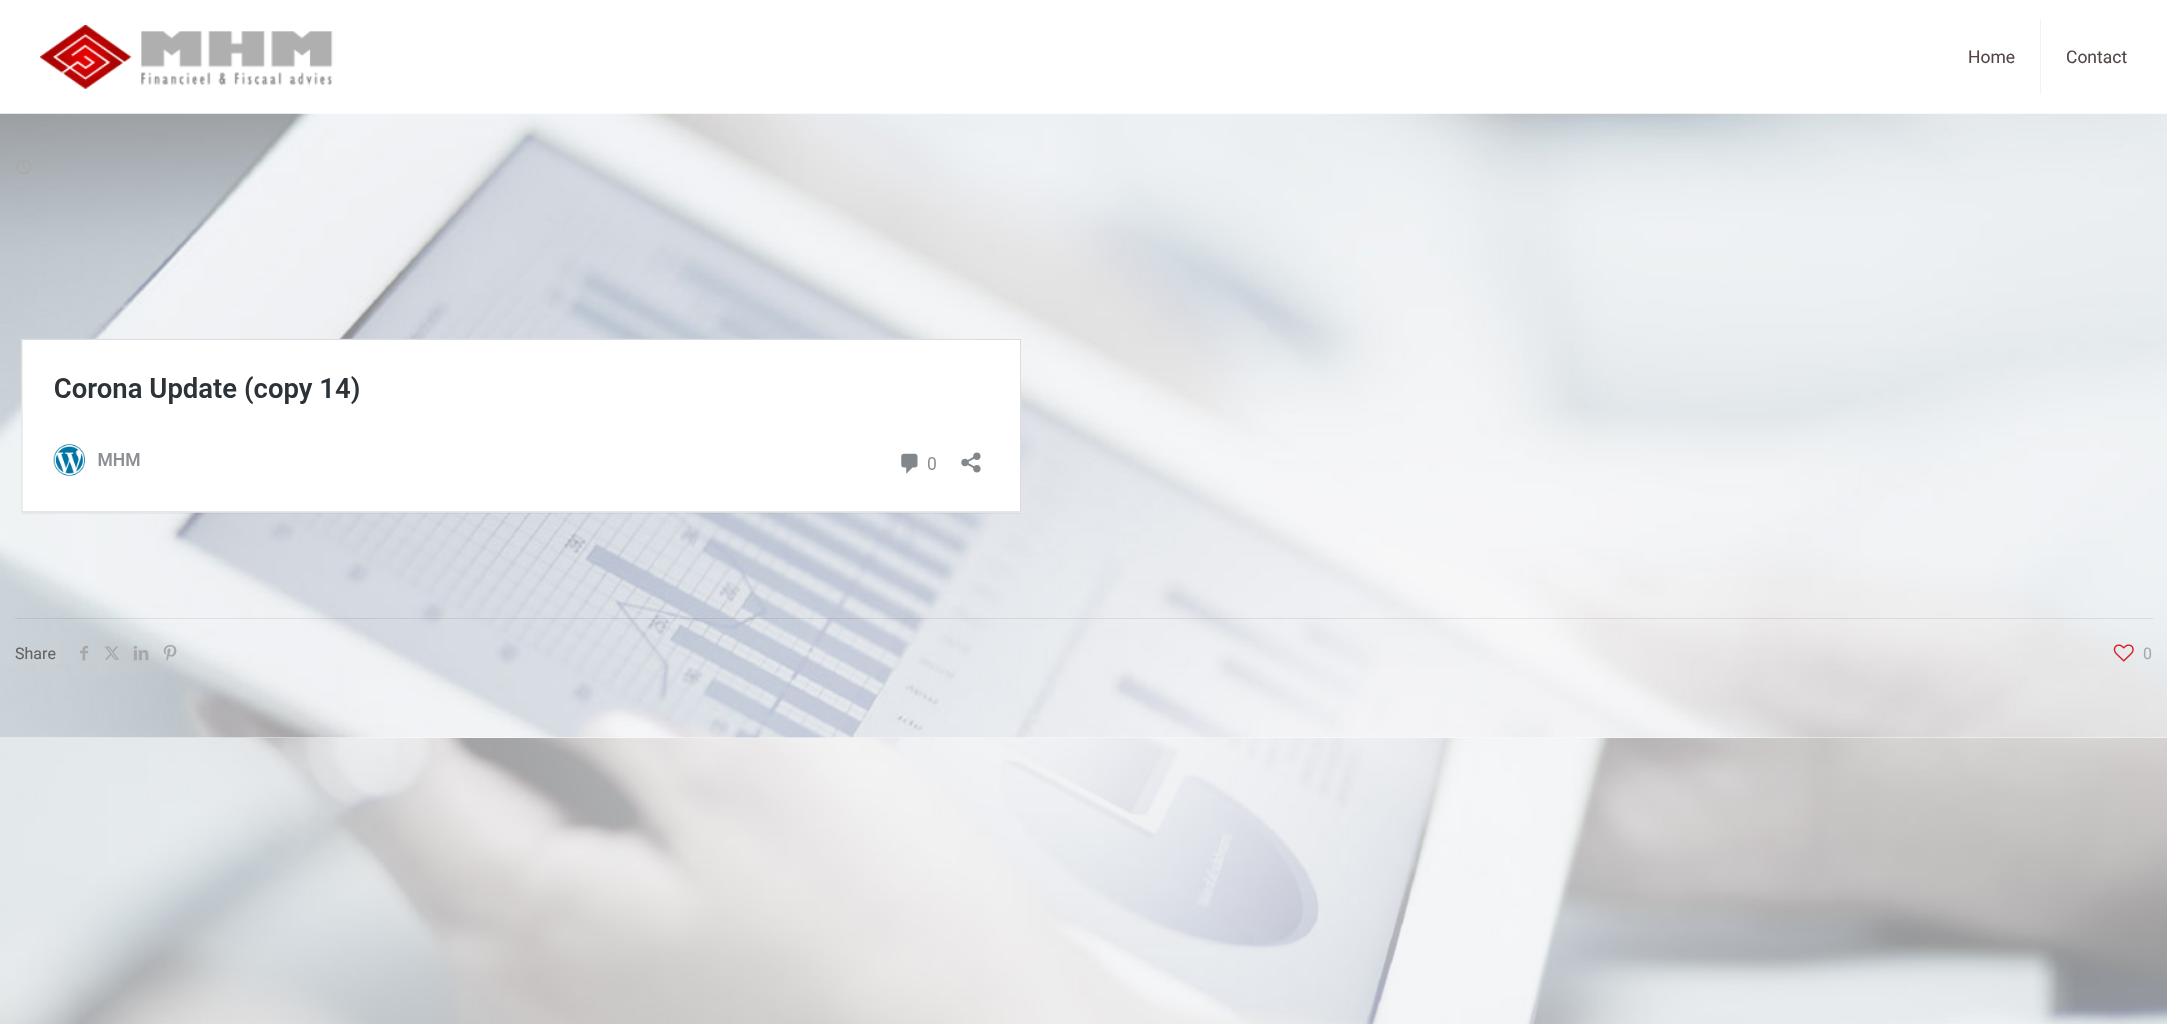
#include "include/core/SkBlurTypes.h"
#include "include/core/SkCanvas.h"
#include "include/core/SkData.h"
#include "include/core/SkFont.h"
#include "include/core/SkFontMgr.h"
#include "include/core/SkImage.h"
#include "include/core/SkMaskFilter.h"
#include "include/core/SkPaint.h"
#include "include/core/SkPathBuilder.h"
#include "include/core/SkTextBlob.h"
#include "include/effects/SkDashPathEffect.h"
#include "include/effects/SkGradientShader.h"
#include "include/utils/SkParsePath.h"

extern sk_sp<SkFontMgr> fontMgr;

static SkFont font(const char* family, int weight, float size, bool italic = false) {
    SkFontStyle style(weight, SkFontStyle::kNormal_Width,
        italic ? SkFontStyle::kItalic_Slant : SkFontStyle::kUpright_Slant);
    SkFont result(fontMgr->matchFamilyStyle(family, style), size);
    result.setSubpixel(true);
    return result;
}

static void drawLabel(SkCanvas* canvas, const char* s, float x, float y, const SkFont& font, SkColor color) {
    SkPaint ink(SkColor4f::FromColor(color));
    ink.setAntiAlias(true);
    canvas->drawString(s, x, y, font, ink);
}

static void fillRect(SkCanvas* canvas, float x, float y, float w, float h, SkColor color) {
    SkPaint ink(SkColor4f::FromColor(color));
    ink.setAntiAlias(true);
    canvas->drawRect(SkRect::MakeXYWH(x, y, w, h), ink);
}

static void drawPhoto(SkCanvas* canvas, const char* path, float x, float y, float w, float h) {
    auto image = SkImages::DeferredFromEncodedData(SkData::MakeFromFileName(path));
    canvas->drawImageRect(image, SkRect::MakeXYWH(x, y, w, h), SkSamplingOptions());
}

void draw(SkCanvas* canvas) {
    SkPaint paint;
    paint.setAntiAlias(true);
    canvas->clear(0xFFFFFFFF);
    drawPhoto(canvas, "assets/img1.png", 0, 738, 2167, 286);
    fillRect(canvas, 0, 737, 2167, 1, 0xFFFCFCFC);
    drawPhoto(canvas, "assets/img2.png", 40, 25, 293, 64);
    fillRect(canvas, 2040, 19, 1, 75, 0xFFF2F2F2);
    SkFont font1 = font("Roboto", 400, 17.5f);
    drawLabel(canvas, "Home", 1968, 63, font1, 0xFF554747);
    drawLabel(canvas, "Contact", 2066, 63, font1, 0xFF554747);
    drawPhoto(canvas, "assets/img3.png", 0, 113, 2167, 625);
    drawPhoto(canvas, "assets/img4.png", 16, 159, 15, 16);
    drawPhoto(canvas, "assets/img5.png", 21, 338, 1000, 176);
    fillRect(canvas, 15, 618, 2138, 1, 0x14000000);
    SkFont font2 = font("Roboto", 400, 16);
    drawLabel(canvas, "Share", 15, 659, font2, 0xFF626262);
    drawPhoto(canvas, "assets/img6.png", 80, 645, 9, 16);
    drawPhoto(canvas, "assets/img7.png", 104, 646, 15, 14);
    drawPhoto(canvas, "assets/img8.png", 133, 645, 16, 16);
    drawPhoto(canvas, "assets/img9.png", 163, 644, 14, 17);
    drawPhoto(canvas, "assets/img10.png", 2113, 644, 21, 18);
    drawLabel(canvas, "0", 2143, 659, font2, 0xFFA8A8A8);
}
